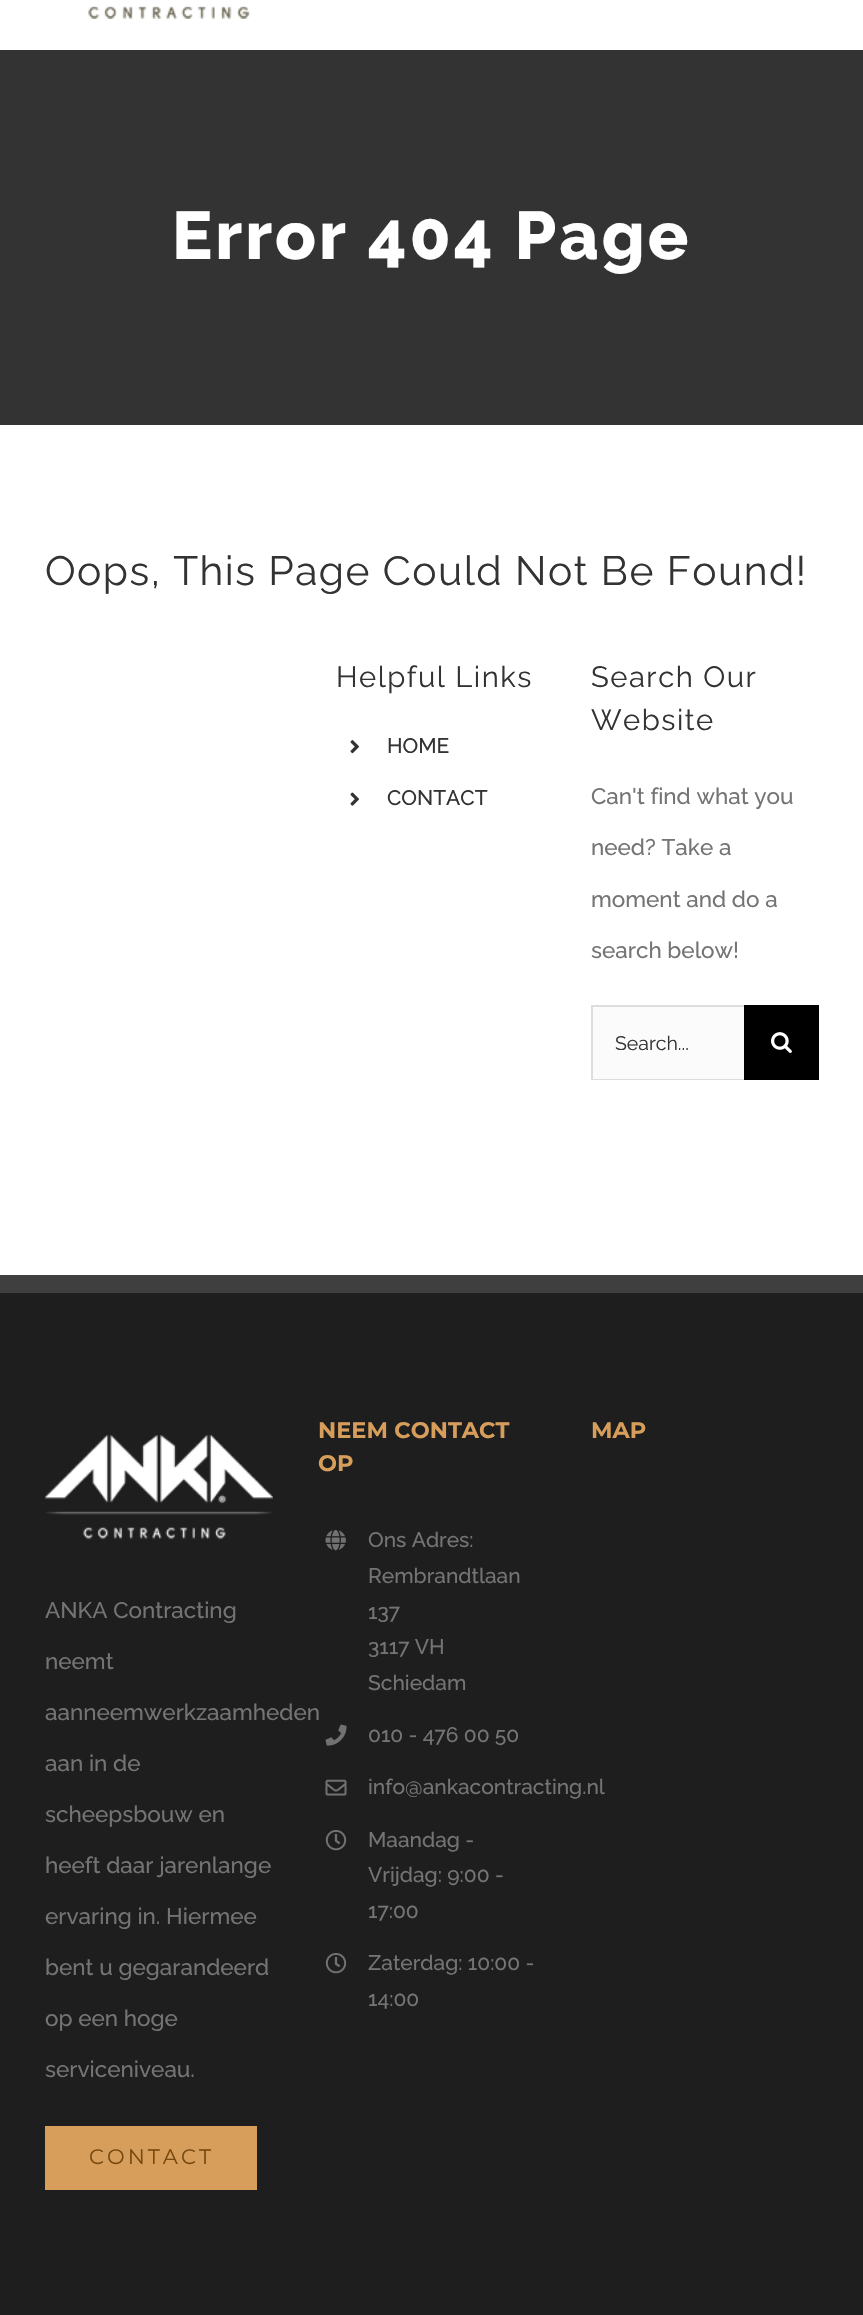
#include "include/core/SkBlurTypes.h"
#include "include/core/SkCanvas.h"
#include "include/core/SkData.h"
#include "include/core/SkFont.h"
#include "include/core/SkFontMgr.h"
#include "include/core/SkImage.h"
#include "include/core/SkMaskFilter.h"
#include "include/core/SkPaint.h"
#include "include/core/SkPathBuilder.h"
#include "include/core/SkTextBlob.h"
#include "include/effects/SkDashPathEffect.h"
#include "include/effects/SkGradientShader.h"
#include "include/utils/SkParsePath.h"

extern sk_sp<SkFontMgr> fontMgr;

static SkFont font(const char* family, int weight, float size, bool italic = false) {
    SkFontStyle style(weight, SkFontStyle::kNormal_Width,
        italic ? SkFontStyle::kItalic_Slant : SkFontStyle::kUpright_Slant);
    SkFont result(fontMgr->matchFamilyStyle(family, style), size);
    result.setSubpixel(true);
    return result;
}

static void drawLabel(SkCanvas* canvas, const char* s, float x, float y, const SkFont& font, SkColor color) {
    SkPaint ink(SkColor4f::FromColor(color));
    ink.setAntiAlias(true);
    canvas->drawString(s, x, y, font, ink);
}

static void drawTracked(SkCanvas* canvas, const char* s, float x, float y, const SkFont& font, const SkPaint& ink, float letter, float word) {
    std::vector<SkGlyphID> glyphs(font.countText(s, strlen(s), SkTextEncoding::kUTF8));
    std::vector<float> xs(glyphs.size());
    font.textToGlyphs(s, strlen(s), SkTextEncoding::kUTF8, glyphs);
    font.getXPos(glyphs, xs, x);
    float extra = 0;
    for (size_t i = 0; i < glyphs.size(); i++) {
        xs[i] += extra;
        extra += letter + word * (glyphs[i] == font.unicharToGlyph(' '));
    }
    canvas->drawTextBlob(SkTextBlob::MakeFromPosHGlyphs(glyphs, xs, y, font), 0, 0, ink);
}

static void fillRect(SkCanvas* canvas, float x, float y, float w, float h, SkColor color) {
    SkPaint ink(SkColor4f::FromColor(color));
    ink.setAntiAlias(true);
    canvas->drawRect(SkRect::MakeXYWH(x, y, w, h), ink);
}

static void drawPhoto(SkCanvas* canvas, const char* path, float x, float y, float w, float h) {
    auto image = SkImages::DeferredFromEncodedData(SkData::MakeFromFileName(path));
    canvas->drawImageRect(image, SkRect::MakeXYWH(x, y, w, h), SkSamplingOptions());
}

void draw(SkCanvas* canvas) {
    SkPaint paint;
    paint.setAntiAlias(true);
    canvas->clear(0xFFFFFFFF);
    drawPhoto(canvas, "assets/img1.png", 88, 6, 162, 13);
    fillRect(canvas, 0, 50, 863, 375, 0xFF333333);
    SkFont font1 = font("Raleway", 100, 67.25f);
    paint.setColor(0xFFFFFFFF);
    drawTracked(canvas, "Error 404 Page", 172, 259, font1, paint, 3, 0);
    SkFont font2 = font("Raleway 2", 100, 40.75f);
    paint.setColor(0xFF333333);
    drawTracked(canvas, "Oops, This Page Could Not Be Found!", 45, 585, font2, paint, 1.5f, 0);
    SkFont font3 = font("Raleway 2", 100, 29.25f);
    drawTracked(canvas, "Helpful Links", 336, 687, font3, paint, 1.5f, 0);
    drawPhoto(canvas, "assets/img2.png", 350, 740, 9, 14);
    SkFont font4 = font("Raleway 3", 100, 21);
    drawLabel(canvas, "HOME", 387, 753, font4, 0xFF333333);
    drawPhoto(canvas, "assets/img3.png", 350, 792, 9, 14);
    drawLabel(canvas, "CONTACT", 387, 805, font4, 0xFF333333);
    drawTracked(canvas, "Search Our", 591, 687, font3, paint, 1.5f, 0);
    drawTracked(canvas, "Website", 591, 730, font3, paint, 1.5f, 0);
    SkFont font5 = font("Raleway 3", 100, 22.5f);
    drawLabel(canvas, "Can't find what you", 591, 804, font5, 0xFF747474);
    drawLabel(canvas, "need? Take a", 591, 855, font5, 0xFF747474);
    drawLabel(canvas, "moment and do a", 591, 907, font5, 0xFF747474);
    drawLabel(canvas, "search below!", 591, 958, font5, 0xFF747474);
    fillRect(canvas, 593, 1007, 151, 72, 0xFFFBFBFB);
    fillRect(canvas, 591, 1005, 153, 2, 0xFFDDDDDD);
    fillRect(canvas, 591, 1079, 153, 1, 0xFFDDDDDD);
    fillRect(canvas, 591, 1005, 2, 75, 0xFFDDDDDD);
    SkFont font6 = font("Raleway 2", 100, 19.5f);
    drawLabel(canvas, "Search...", 615, 1050, font6, 0xFF333333);
    fillRect(canvas, 744, 1005, 75, 75, 0xFF000000);
    drawPhoto(canvas, "assets/img4.png", 771, 1032, 21, 21);
    fillRect(canvas, 0, 1293, 863, 1022, 0xFF1E1E1E);
    fillRect(canvas, 0, 1275, 863, 18, 0xFF3F3F3F);
    SkFont font7 = font("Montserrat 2", 100, 22.5f);
    drawLabel(canvas, "NEEM CONTACT", 318, 1438, font7, 0xFFD69E5A);
    drawLabel(canvas, "OP", 318, 1471, font7, 0xFFD69E5A);
    drawPhoto(canvas, "assets/img5.png", 325, 1530, 21, 21);
    drawLabel(canvas, "Ons Adres:", 368, 1547, font4, 0xFF747474);
    drawLabel(canvas, "Rembrandtlaan", 368, 1583, font4, 0xFF747474);
    drawLabel(canvas, "137", 368, 1619, font4, 0xFF747474);
    drawLabel(canvas, "3117 VH", 368, 1654, font4, 0xFF747474);
    drawLabel(canvas, "Schiedam", 368, 1690, font4, 0xFF747474);
    drawPhoto(canvas, "assets/img6.png", 325, 1724, 22, 22);
    drawLabel(canvas, "010 - 476 00 50", 368, 1742, font4, 0xFF747474);
    drawPhoto(canvas, "assets/img7.png", 325, 1779, 22, 17);
    drawLabel(canvas, "info@ankacontracting.nl", 368, 1794, font4, 0xFF747474);
    drawPhoto(canvas, "assets/img8.png", 325, 1830, 22, 21);
    drawLabel(canvas, "Maandag -", 368, 1847, font4, 0xFF747474);
    drawLabel(canvas, "Vrijdag: 9:00 -", 368, 1882, font4, 0xFF747474);
    drawLabel(canvas, "17:00", 368, 1918, font4, 0xFF747474);
    drawPhoto(canvas, "assets/img8.png", 325, 1953, 22, 21);
    drawLabel(canvas, "Zaterdag: 10:00 -", 368, 1970, font4, 0xFF747474);
    drawLabel(canvas, "14:00", 368, 2006, font4, 0xFF747474);
    drawLabel(canvas, "MAP", 591, 1438, font7, 0xFFD69E5A);
    drawPhoto(canvas, "assets/img9.png", 45, 1435, 228, 105);
    drawLabel(canvas, "ANKA Contracting", 45, 1618, font5, 0xFF747474);
    drawLabel(canvas, "neemt", 45, 1669, font5, 0xFF747474);
    drawLabel(canvas, "aanneemwerkzaamheden", 45, 1720, font5, 0xFF747474);
    drawLabel(canvas, "aan in de", 45, 1771, font5, 0xFF747474);
    drawLabel(canvas, "scheepsbouw en", 45, 1822, font5, 0xFF747474);
    drawLabel(canvas, "heeft daar jarenlange", 45, 1873, font5, 0xFF747474);
    drawLabel(canvas, "ervaring in. Hiermee", 45, 1924, font5, 0xFF747474);
    drawLabel(canvas, "bent u gegarandeerd", 45, 1975, font5, 0xFF747474);
    drawLabel(canvas, "op een hoge", 45, 2026, font5, 0xFF747474);
    drawLabel(canvas, "serviceniveau.", 45, 2077, font5, 0xFF747474);
    fillRect(canvas, 45, 2126, 212, 64, 0xFFD69E5A);
    SkFont font8 = font("Montserrat", 100, 21);
    paint.setColor(0xFF784910);
    drawTracked(canvas, "CONTACT", 89, 2164, font8, paint, 3, 0);
}
